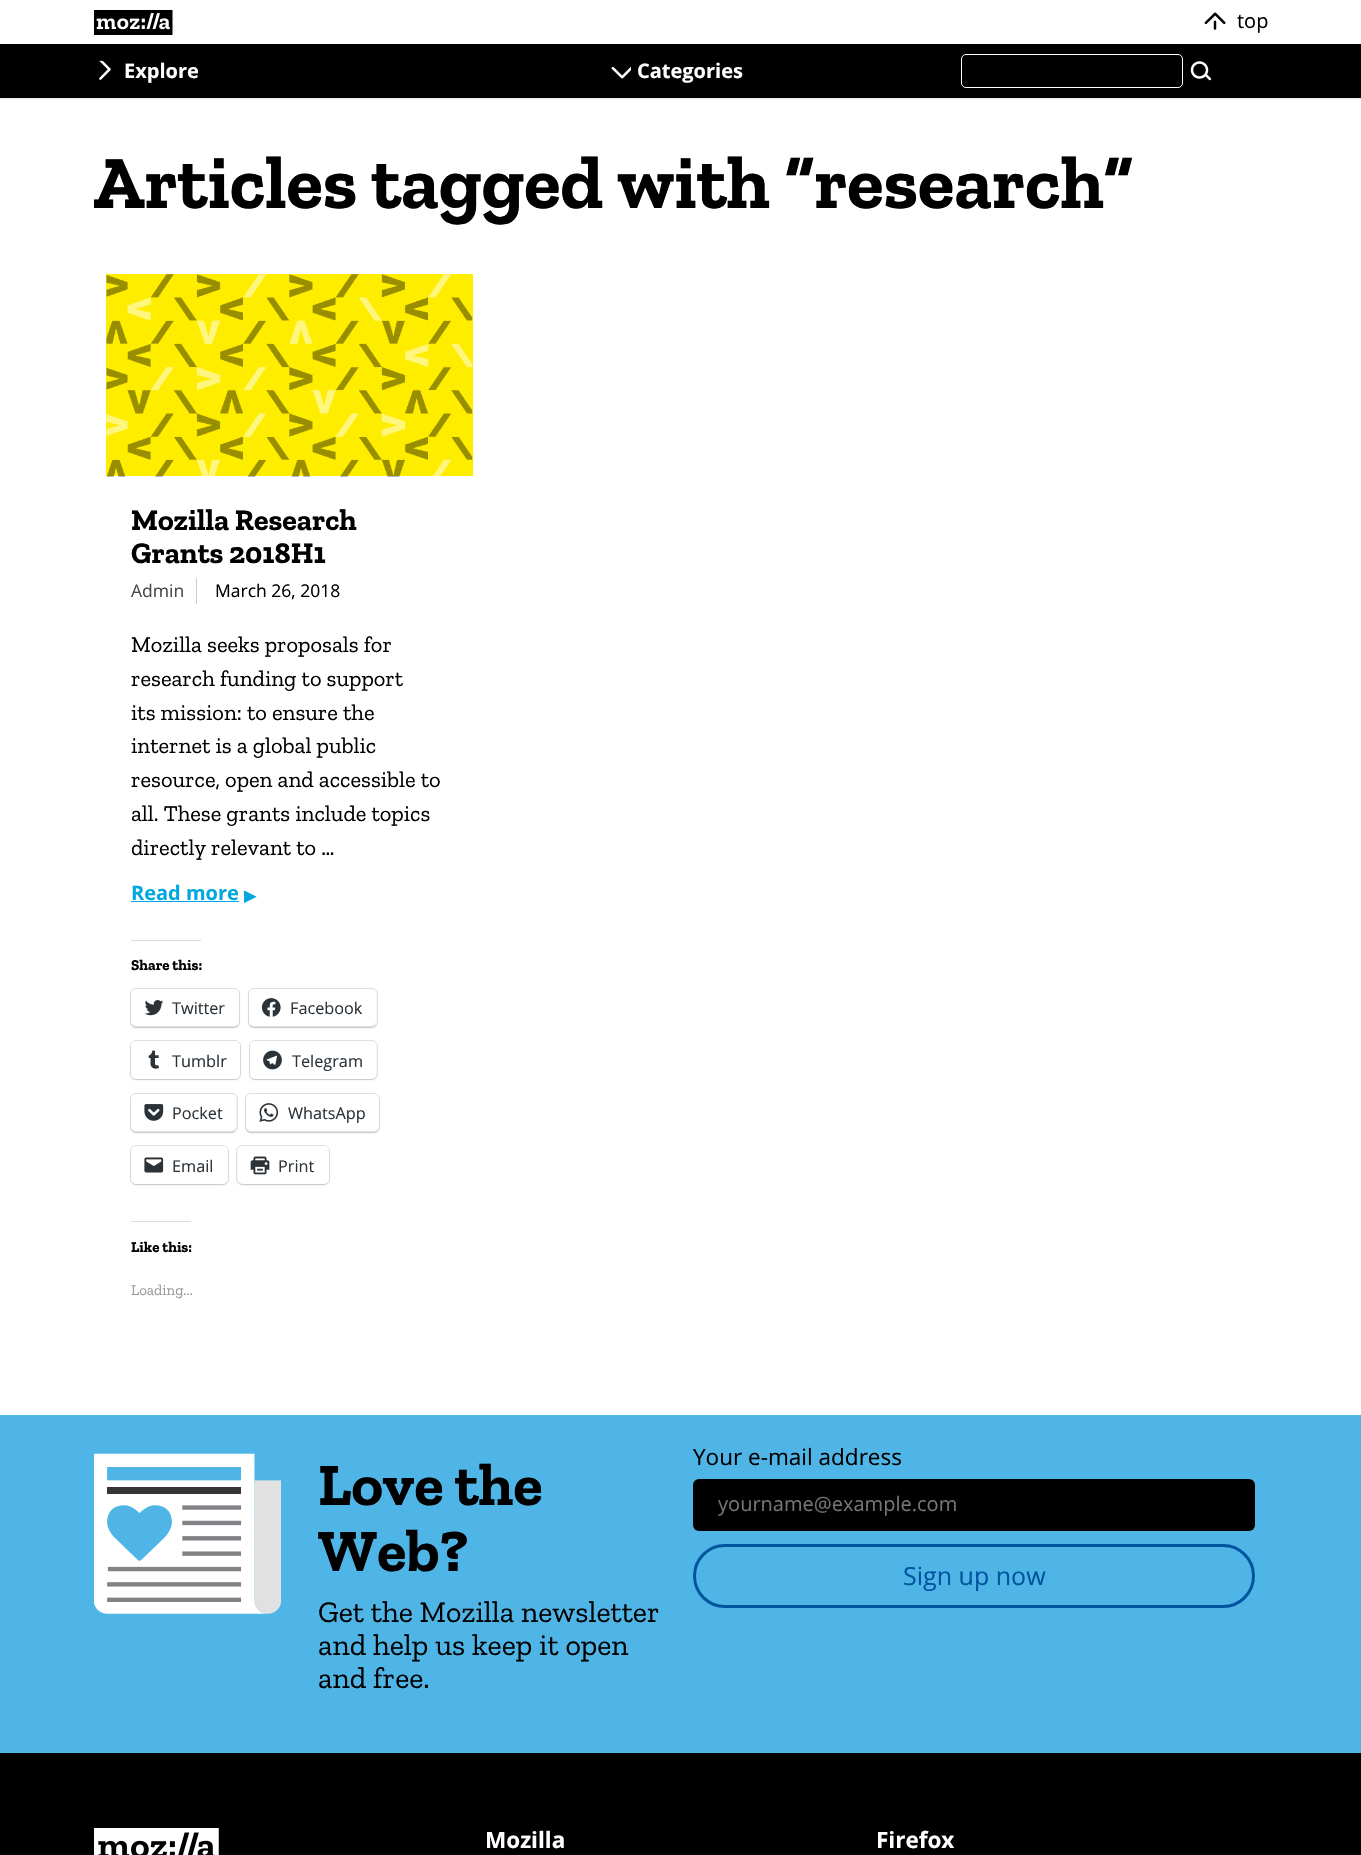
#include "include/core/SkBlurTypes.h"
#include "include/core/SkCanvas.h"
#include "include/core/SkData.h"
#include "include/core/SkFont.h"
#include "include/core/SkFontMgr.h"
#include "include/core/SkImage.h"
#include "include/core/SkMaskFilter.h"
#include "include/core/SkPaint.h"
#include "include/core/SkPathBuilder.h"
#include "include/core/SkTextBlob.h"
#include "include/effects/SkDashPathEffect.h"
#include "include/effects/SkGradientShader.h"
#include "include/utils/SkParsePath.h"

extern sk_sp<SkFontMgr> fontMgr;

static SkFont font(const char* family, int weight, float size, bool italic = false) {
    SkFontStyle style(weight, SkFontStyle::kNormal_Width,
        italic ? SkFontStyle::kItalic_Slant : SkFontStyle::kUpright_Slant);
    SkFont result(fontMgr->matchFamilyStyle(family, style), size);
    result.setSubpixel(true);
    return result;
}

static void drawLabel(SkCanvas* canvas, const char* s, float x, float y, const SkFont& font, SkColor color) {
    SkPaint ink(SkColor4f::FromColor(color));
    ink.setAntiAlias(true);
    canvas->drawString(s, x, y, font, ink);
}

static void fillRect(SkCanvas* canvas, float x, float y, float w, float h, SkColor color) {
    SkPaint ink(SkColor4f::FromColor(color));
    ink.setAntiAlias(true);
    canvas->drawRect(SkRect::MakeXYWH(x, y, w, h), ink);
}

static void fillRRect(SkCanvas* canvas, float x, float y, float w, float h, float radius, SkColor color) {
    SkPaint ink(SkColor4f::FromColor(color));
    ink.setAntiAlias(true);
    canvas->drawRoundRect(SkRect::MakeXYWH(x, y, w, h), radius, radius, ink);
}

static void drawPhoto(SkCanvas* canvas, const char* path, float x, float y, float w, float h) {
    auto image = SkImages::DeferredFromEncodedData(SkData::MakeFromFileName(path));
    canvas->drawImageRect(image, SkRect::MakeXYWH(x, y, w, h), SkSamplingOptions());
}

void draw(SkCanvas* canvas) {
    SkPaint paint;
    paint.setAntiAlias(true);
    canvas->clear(0xFFFFFFFF);
    paint.setColor(0x1A000000);
    paint.setMaskFilter(SkMaskFilter::MakeBlur(kNormal_SkBlurStyle, 0.5f));
    canvas->drawRect(SkRect::MakeXYWH(0, 45, 1361, 54), paint);
    paint.setMaskFilter(nullptr);
    fillRect(canvas, 0, 44, 1361, 54, 0xFF000000);
    paint.setMaskFilter(SkMaskFilter::MakeBlur(kNormal_SkBlurStyle, 0.5f));
    canvas->drawRect(SkRect::MakeXYWH(0, 1, 1361, 44), paint);
    paint.setMaskFilter(nullptr);
    fillRect(canvas, 0, 0, 1361, 44, 0xFFFFFFFF);
    drawPhoto(canvas, "assets/img1.png", 94, 10, 79, 25);
    drawPhoto(canvas, "assets/img2.png", 1204, 12, 22, 18);
    SkFont font1 = font("Open Sans", 400, 20);
    drawLabel(canvas, "top", 1237, 28, font1, 0xFF000000);
    drawPhoto(canvas, "assets/img3.png", 99, 60, 12, 20);
    SkFont font2 = font("Open Sans", 700, 20);
    drawLabel(canvas, "Explore", 124, 78, font2, 0xFFFFFFFF);
    drawPhoto(canvas, "assets/img4.png", 611, 66, 20, 13);
    drawLabel(canvas, "Categories", 637, 78, font2, 0xFFFFFFFF);
    paint.setStroke(true);
    paint.setStrokeWidth(1);
    paint.setColor(0xFFFFFFFF);
    canvas->drawRoundRect(SkRect::MakeXYWH(961.5f, 54.5f, 221, 33), 4.5f, 4.5f, paint);
    drawPhoto(canvas, "assets/img5.png", 1190, 61, 22, 20);
    SkFont font3 = font("Zilla Slab", 700, 75);
    drawLabel(canvas, "Articles tagged with “research”", 93, 208, font3, 0xFF000000);
    fillRect(canvas, 106, 274, 367, 202, 0xFFFFED00);
    drawPhoto(canvas, "assets/img6.png", 106, 274, 367, 203);
    SkFont font4 = font("Zilla Slab", 700, 30);
    drawLabel(canvas, "Mozilla Research", 131, 530, font4, 0xFF000000);
    drawLabel(canvas, "Grants 2018H1", 131, 563, font4, 0xFF000000);
    fillRect(canvas, 196, 578, 1, 26, 0xFFCCCCCC);
    SkFont font5 = font("Open Sans", 400, 17.5f);
    drawLabel(canvas, "Admin", 131, 597, font5, 0xFF484848);
    drawLabel(canvas, "March 26, 2018", 215, 597, font5, 0xFF000000);
    SkFont font6 = font("Zilla Slab", 400, 22.5f);
    drawLabel(canvas, "Mozilla seeks proposals for", 131, 652, font6, 0xFF000000);
    drawLabel(canvas, "research funding to support", 131, 686, font6, 0xFF000000);
    drawLabel(canvas, "its mission: to ensure the", 131, 720, font6, 0xFF000000);
    drawLabel(canvas, "internet is a global public", 131, 753, font6, 0xFF000000);
    drawLabel(canvas, "resource, open and accessible to", 131, 787, font6, 0xFF000000);
    drawLabel(canvas, "all. These grants include topics", 131, 821, font6, 0xFF000000);
    drawLabel(canvas, "directly relevant to …", 131, 855, font6, 0xFF000000);
    drawLabel(canvas, "Read more", 131, 900, font2, 0xFF00A7E0);
    fillRect(canvas, 131, 901, 108, 1, 0xFF00A7E0);
    SkFont font7 = font("DejaVu Sans", 700, 23);
    drawLabel(canvas, "▸", 244, 903, font7, 0xFF00A7E0);
    fillRect(canvas, 131, 940, 70, 1, 0xFFDCDCDE);
    SkFont font8 = font("Zilla Slab", 700, 15);
    drawLabel(canvas, "Share this:", 131, 970, font8, 0xFF000000);
    paint.setColor(0xFFE0E0E0);
    canvas->drawRoundRect(SkRect::MakeXYWH(130.5f, 988.5f, 109, 39), 5.5f, 5.5f, paint);
    paint.setStroke(false);
    paint.setColor(0x1F000000);
    paint.setMaskFilter(SkMaskFilter::MakeBlur(kNormal_SkBlurStyle, 1));
    canvas->drawRoundRect(SkRect::MakeXYWH(131, 990, 108, 38), 5, 5, paint);
    paint.setMaskFilter(nullptr);
    fillRRect(canvas, 131, 989, 108, 37, 5, 0xFFFFFFFF);
    drawPhoto(canvas, "assets/img7.png", 144, 1000, 20, 16);
    SkFont font9 = font("Open Sans", 400, 16.25f);
    drawLabel(canvas, "Twitter", 172, 1014, font9, 0xFF2C3338);
    paint.setStroke(true);
    paint.setColor(0xFFE0E0E0);
    canvas->drawRoundRect(SkRect::MakeXYWH(248.5f, 988.5f, 129, 39), 5.5f, 5.5f, paint);
    paint.setStroke(false);
    paint.setColor(0x1F000000);
    paint.setMaskFilter(SkMaskFilter::MakeBlur(kNormal_SkBlurStyle, 1));
    canvas->drawRoundRect(SkRect::MakeXYWH(249, 990, 127, 38), 5, 5, paint);
    paint.setMaskFilter(nullptr);
    fillRRect(canvas, 249, 989, 127, 37, 5, 0xFFFFFFFF);
    drawPhoto(canvas, "assets/img8.png", 261, 998, 20, 19);
    drawLabel(canvas, "Facebook", 290, 1014, font9, 0xFF2C3338);
    paint.setStroke(true);
    paint.setColor(0xFFE0E0E0);
    canvas->drawRoundRect(SkRect::MakeXYWH(130.5f, 1040.5f, 110, 39), 5.5f, 5.5f, paint);
    paint.setStroke(false);
    paint.setColor(0x1F000000);
    paint.setMaskFilter(SkMaskFilter::MakeBlur(kNormal_SkBlurStyle, 1));
    canvas->drawRoundRect(SkRect::MakeXYWH(131, 1043, 109, 37), 5, 5, paint);
    paint.setMaskFilter(nullptr);
    fillRRect(canvas, 131, 1041, 109, 38, 5, 0xFFFFFFFF);
    drawPhoto(canvas, "assets/img9.png", 148, 1050, 11, 19);
    drawLabel(canvas, "Tumblr", 172, 1067, font9, 0xFF2C3338);
    paint.setStroke(true);
    paint.setColor(0xFFE0E0E0);
    canvas->drawRoundRect(SkRect::MakeXYWH(249.5f, 1040.5f, 128, 39), 5.5f, 5.5f, paint);
    paint.setStroke(false);
    paint.setColor(0x1F000000);
    paint.setMaskFilter(SkMaskFilter::MakeBlur(kNormal_SkBlurStyle, 1));
    canvas->drawRoundRect(SkRect::MakeXYWH(250, 1043, 126, 37), 5, 5, paint);
    paint.setMaskFilter(nullptr);
    fillRRect(canvas, 250, 1041, 126, 38, 5, 0xFFFFFFFF);
    drawPhoto(canvas, "assets/img10.png", 263, 1050, 19, 20);
    drawLabel(canvas, "Telegram", 292, 1067, font9, 0xFF2C3338);
    paint.setStroke(true);
    paint.setColor(0xFFE0E0E0);
    canvas->drawRoundRect(SkRect::MakeXYWH(130.5f, 1093.5f, 107, 39), 5.5f, 5.5f, paint);
    paint.setStroke(false);
    paint.setColor(0x1F000000);
    paint.setMaskFilter(SkMaskFilter::MakeBlur(kNormal_SkBlurStyle, 1));
    canvas->drawRoundRect(SkRect::MakeXYWH(131, 1095, 105, 38), 5, 5, paint);
    paint.setMaskFilter(nullptr);
    fillRRect(canvas, 131, 1094, 105, 37, 5, 0xFFFFFFFF);
    drawPhoto(canvas, "assets/img11.png", 144, 1104, 20, 17);
    drawLabel(canvas, "Pocket", 172, 1119, font9, 0xFF2C3338);
    paint.setStroke(true);
    paint.setColor(0xFFE0E0E0);
    canvas->drawRoundRect(SkRect::MakeXYWH(245.5f, 1093.5f, 134, 39), 5.5f, 5.5f, paint);
    paint.setStroke(false);
    paint.setColor(0x1F000000);
    paint.setMaskFilter(SkMaskFilter::MakeBlur(kNormal_SkBlurStyle, 1));
    canvas->drawRoundRect(SkRect::MakeXYWH(246, 1095, 133, 38), 5, 5, paint);
    paint.setMaskFilter(nullptr);
    fillRRect(canvas, 246, 1094, 133, 37, 5, 0xFFFFFFFF);
    drawPhoto(canvas, "assets/img12.png", 259, 1103, 20, 19);
    drawLabel(canvas, "WhatsApp", 288, 1119, font9, 0xFF2C3338);
    paint.setStroke(true);
    paint.setColor(0xFFE0E0E0);
    canvas->drawRoundRect(SkRect::MakeXYWH(130.5f, 1145.5f, 98, 39), 5.5f, 5.5f, paint);
    paint.setStroke(false);
    paint.setColor(0x1F000000);
    paint.setMaskFilter(SkMaskFilter::MakeBlur(kNormal_SkBlurStyle, 1));
    canvas->drawRoundRect(SkRect::MakeXYWH(131, 1148, 97, 37), 5, 5, paint);
    paint.setMaskFilter(nullptr);
    fillRRect(canvas, 131, 1146, 97, 38, 5, 0xFFFFFFFF);
    drawPhoto(canvas, "assets/img13.png", 144, 1157, 20, 16);
    drawLabel(canvas, "Email", 172, 1172, font9, 0xFF2C3338);
    paint.setStroke(true);
    paint.setColor(0xFFE0E0E0);
    canvas->drawRoundRect(SkRect::MakeXYWH(236.5f, 1145.5f, 93, 39), 5.5f, 5.5f, paint);
    paint.setStroke(false);
    paint.setColor(0x1F000000);
    paint.setMaskFilter(SkMaskFilter::MakeBlur(kNormal_SkBlurStyle, 1));
    canvas->drawRoundRect(SkRect::MakeXYWH(238, 1148, 91, 37), 5, 5, paint);
    paint.setMaskFilter(nullptr);
    fillRRect(canvas, 238, 1146, 91, 38, 5, 0xFFFFFFFF);
    drawPhoto(canvas, "assets/img14.png", 250, 1156, 20, 19);
    drawLabel(canvas, "Print", 278, 1172, font9, 0xFF2C3338);
    fillRect(canvas, 131, 1221, 60, 1, 0xFFDCDCDE);
    drawLabel(canvas, "Like this:", 131, 1252, font8, 0xFF000000);
    SkFont font10 = font("Zilla Slab", 400, 15);
    drawLabel(canvas, "Loading...", 131, 1295, font10, 0xFF999999);
    fillRect(canvas, 0, 1415, 1361, 338, 0xFF4EB5E6);
    drawPhoto(canvas, "assets/img15.png", 94, 1453, 187, 161);
    SkFont font11 = font("Zilla Slab", 700, 60);
    drawLabel(canvas, "Love the", 318, 1505, font11, 0xFF000000);
    drawLabel(canvas, "Web?", 318, 1571, font11, 0xFF000000);
    SkFont font12 = font("Zilla Slab", 400, 30);
    drawLabel(canvas, "Get the Mozilla newsletter", 318, 1622, font12, 0xFF000000);
    drawLabel(canvas, "and help us keep it open", 318, 1655, font12, 0xFF000000);
    drawLabel(canvas, "and free.", 318, 1688, font12, 0xFF000000);
    SkFont font13 = font("Open Sans", 400, 22.5f);
    drawLabel(canvas, "Your e-mail address", 693, 1465, font13, 0xFF000000);
    fillRRect(canvas, 693, 1479, 562, 52, 6, 0xFF000000);
    drawLabel(canvas, "yourname@example.com", 718, 1511, font1, 0xFF757575);
    paint.setStroke(true);
    paint.setStrokeWidth(3);
    paint.setColor(0xFF00539F);
    canvas->drawRoundRect(SkRect::MakeXYWH(694.5f, 1545.5f, 559, 61), 30.5f, 30.5f, paint);
    SkFont font14 = font("Open Sans", 400, 25);
    drawLabel(canvas, "Sign up now", 903, 1585, font14, 0xFF00539F);
    fillRect(canvas, 0, 1753, 1361, 102, 0xFF000000);
    drawPhoto(canvas, "assets/img16.png", 94, 1828, 125, 27);
    SkFont font15 = font("Open Sans", 700, 22.5f);
    drawLabel(canvas, "Mozilla", 485, 1848, font15, 0xFFFFFFFF);
    drawLabel(canvas, "Firefox", 876, 1848, font15, 0xFFFFFFFF);
}
